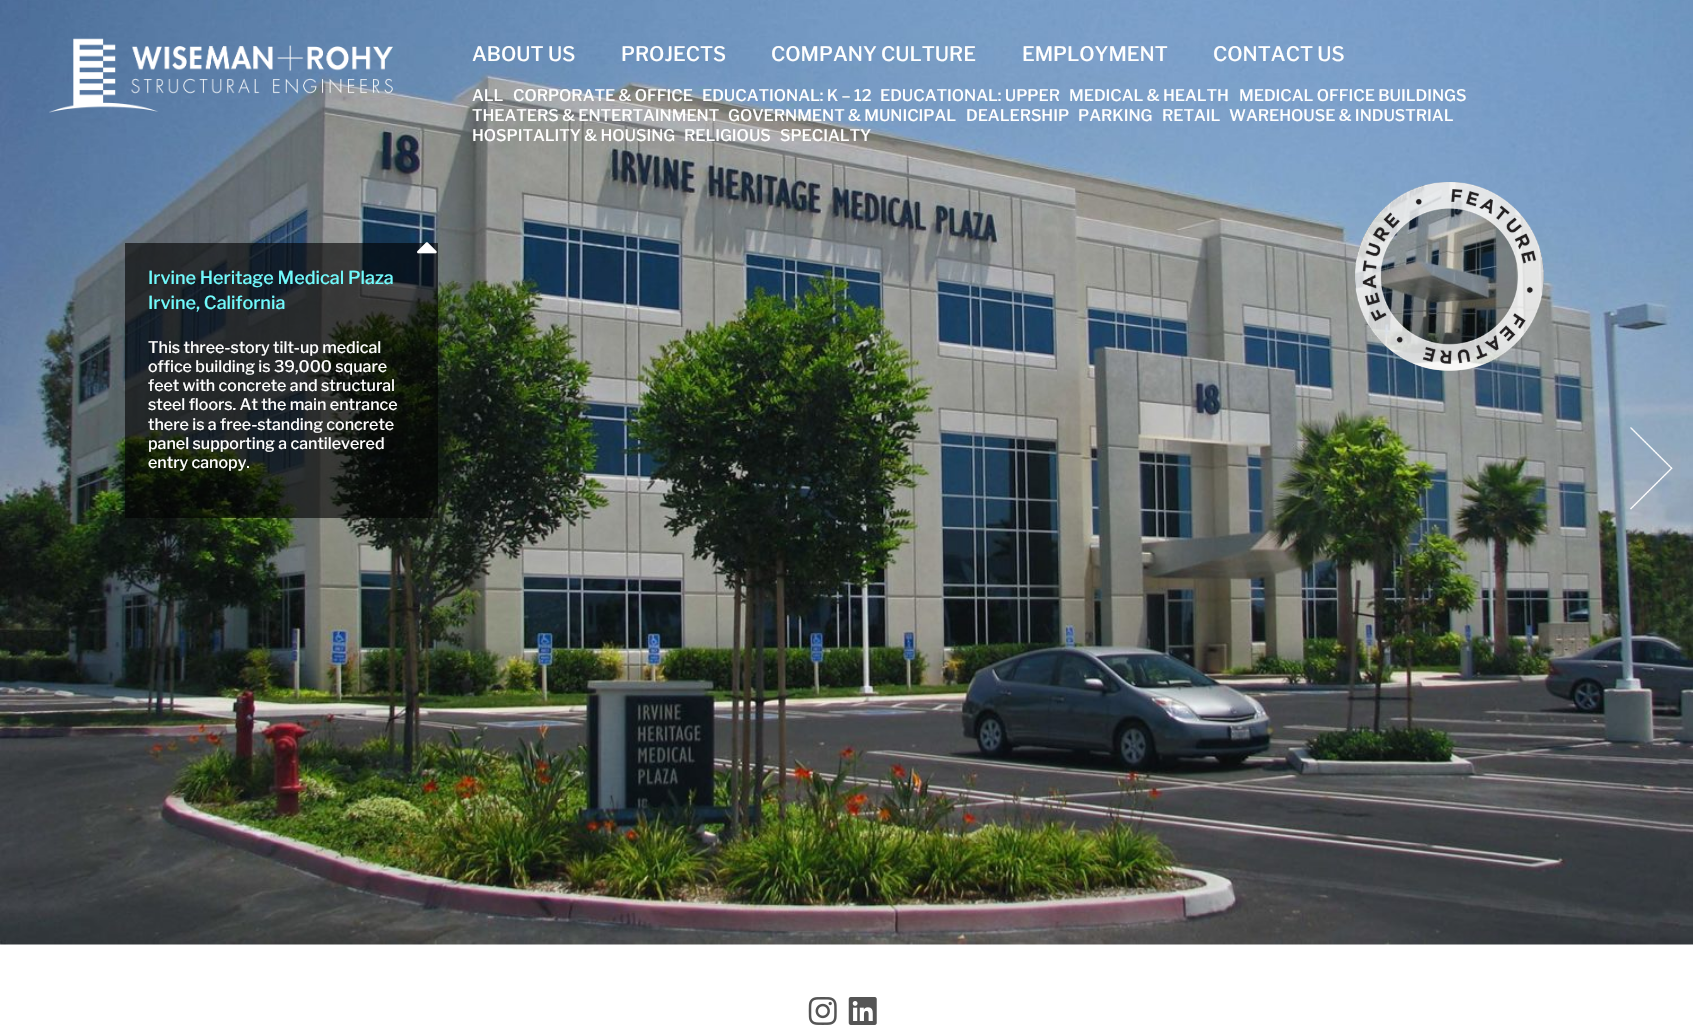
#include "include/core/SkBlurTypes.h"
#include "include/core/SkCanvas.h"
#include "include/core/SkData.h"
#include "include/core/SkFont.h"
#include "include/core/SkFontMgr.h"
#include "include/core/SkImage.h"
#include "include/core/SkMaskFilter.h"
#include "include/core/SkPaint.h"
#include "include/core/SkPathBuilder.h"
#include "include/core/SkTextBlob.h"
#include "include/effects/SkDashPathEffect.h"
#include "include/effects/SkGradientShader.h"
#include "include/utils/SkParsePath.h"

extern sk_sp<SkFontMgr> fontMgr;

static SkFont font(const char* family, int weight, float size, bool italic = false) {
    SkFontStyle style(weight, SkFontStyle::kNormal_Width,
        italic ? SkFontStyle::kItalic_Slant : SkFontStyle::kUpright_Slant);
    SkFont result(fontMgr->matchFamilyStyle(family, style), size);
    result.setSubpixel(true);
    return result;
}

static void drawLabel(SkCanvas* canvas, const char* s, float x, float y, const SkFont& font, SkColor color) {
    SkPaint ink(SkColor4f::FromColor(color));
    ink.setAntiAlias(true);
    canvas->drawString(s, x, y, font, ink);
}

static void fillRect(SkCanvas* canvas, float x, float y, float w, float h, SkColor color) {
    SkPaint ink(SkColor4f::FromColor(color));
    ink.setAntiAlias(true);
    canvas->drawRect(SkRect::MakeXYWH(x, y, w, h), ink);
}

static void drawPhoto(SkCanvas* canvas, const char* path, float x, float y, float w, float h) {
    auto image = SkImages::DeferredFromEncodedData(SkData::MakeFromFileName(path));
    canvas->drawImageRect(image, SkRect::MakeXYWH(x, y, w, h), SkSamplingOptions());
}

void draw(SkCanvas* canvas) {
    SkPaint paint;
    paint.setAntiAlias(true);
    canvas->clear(0xFFFFFFFF);
    drawPhoto(canvas, "assets/img2.png", 0, 0, 1693, 945);
    drawPhoto(canvas, "assets/img1.png", 49, 38, 344, 75);
    SkFont font1 = font("Libre Franklin", 500, 20);
    drawLabel(canvas, "ABOUT US", 472, 61, font1, 0xFFFFFFFF);
    drawLabel(canvas, "PROJECTS", 621, 61, font1, 0xFFFFFFFF);
    SkFont font2 = font("Libre Franklin", 500, 16);
    drawLabel(canvas, "ALL", 472, 101, font2, 0xFFFFFFFF);
    drawLabel(canvas, "CORPORATE & OFFICE", 513, 101, font2, 0xFFFFFFFF);
    drawLabel(canvas, "EDUCATIONAL: K – 12", 702, 101, font2, 0xFFFFFFFF);
    drawLabel(canvas, "EDUCATIONAL: UPPER", 880, 101, font2, 0xFFFFFFFF);
    drawLabel(canvas, "MEDICAL & HEALTH", 1069, 101, font2, 0xFFFFFFFF);
    drawLabel(canvas, "MEDICAL OFFICE BUILDINGS", 1239, 101, font2, 0xFFFFFFFF);
    drawLabel(canvas, "THEATERS & ENTERTAINMENT", 472, 121, font2, 0xFFFFFFFF);
    drawLabel(canvas, "GOVERNMENT & MUNICIPAL", 728, 121, font2, 0xFFFFFFFF);
    drawLabel(canvas, "DEALERSHIP", 966, 121, font2, 0xFFFFFFFF);
    drawLabel(canvas, "PARKING", 1078, 121, font2, 0xFFFFFFFF);
    drawLabel(canvas, "RETAIL", 1162, 121, font2, 0xFFFFFFFF);
    drawLabel(canvas, "WAREHOUSE & INDUSTRIAL", 1229, 121, font2, 0xFFFFFFFF);
    drawLabel(canvas, "HOSPITALITY & HOUSING", 472, 141, font2, 0xFFFFFFFF);
    drawLabel(canvas, "RELIGIOUS", 684, 141, font2, 0xFFFFFFFF);
    drawLabel(canvas, "SPECIALTY", 780, 141, font2, 0xFFFFFFFF);
    drawLabel(canvas, "COMPANY CULTURE", 771, 61, font1, 0xFFFFFFFF);
    drawLabel(canvas, "EMPLOYMENT", 1022, 61, font1, 0xFFFFFFFF);
    drawLabel(canvas, "CONTACT US", 1213, 61, font1, 0xFFFFFFFF);
    fillRect(canvas, 125, 243, 313, 275, 0x9C000000);
    drawPhoto(canvas, "assets/img3.png", 417, 242, 20, 12);
    SkFont font3 = font("Libre Franklin", 500, 18);
    drawLabel(canvas, "Irvine Heritage Medical Plaza", 148, 284, font3, 0xFF71FBFD);
    drawLabel(canvas, "Irvine, California", 148, 309, font3, 0xFF71FBFD);
    drawLabel(canvas, "This three-story tilt-up medical", 148, 353, font2, 0xFFFFFFFF);
    drawLabel(canvas, "office building is 39,000 square", 148, 372, font2, 0xFFFFFFFF);
    drawLabel(canvas, "feet with concrete and structural", 148, 391, font2, 0xFFFFFFFF);
    drawLabel(canvas, "steel floors. At the main entrance", 148, 410, font2, 0xFFFFFFFF);
    drawLabel(canvas, "there is a free-standing concrete", 148, 430, font2, 0xFFFFFFFF);
    drawLabel(canvas, "panel supporting a cantilevered", 148, 449, font2, 0xFFFFFFFF);
    drawLabel(canvas, "entry canopy.", 148, 468, font2, 0xFFFFFFFF);
    drawPhoto(canvas, "assets/img4.png", 1355, 182, 189, 189);
    drawPhoto(canvas, "assets/img5.png", 1355, 182, 189, 189);
    drawPhoto(canvas, "assets/img6.png", 1630, 427, 43, 83);
    drawPhoto(canvas, "assets/img7.png", 808, 997, 29, 28);
    drawPhoto(canvas, "assets/img8.png", 848, 997, 29, 28);
}
